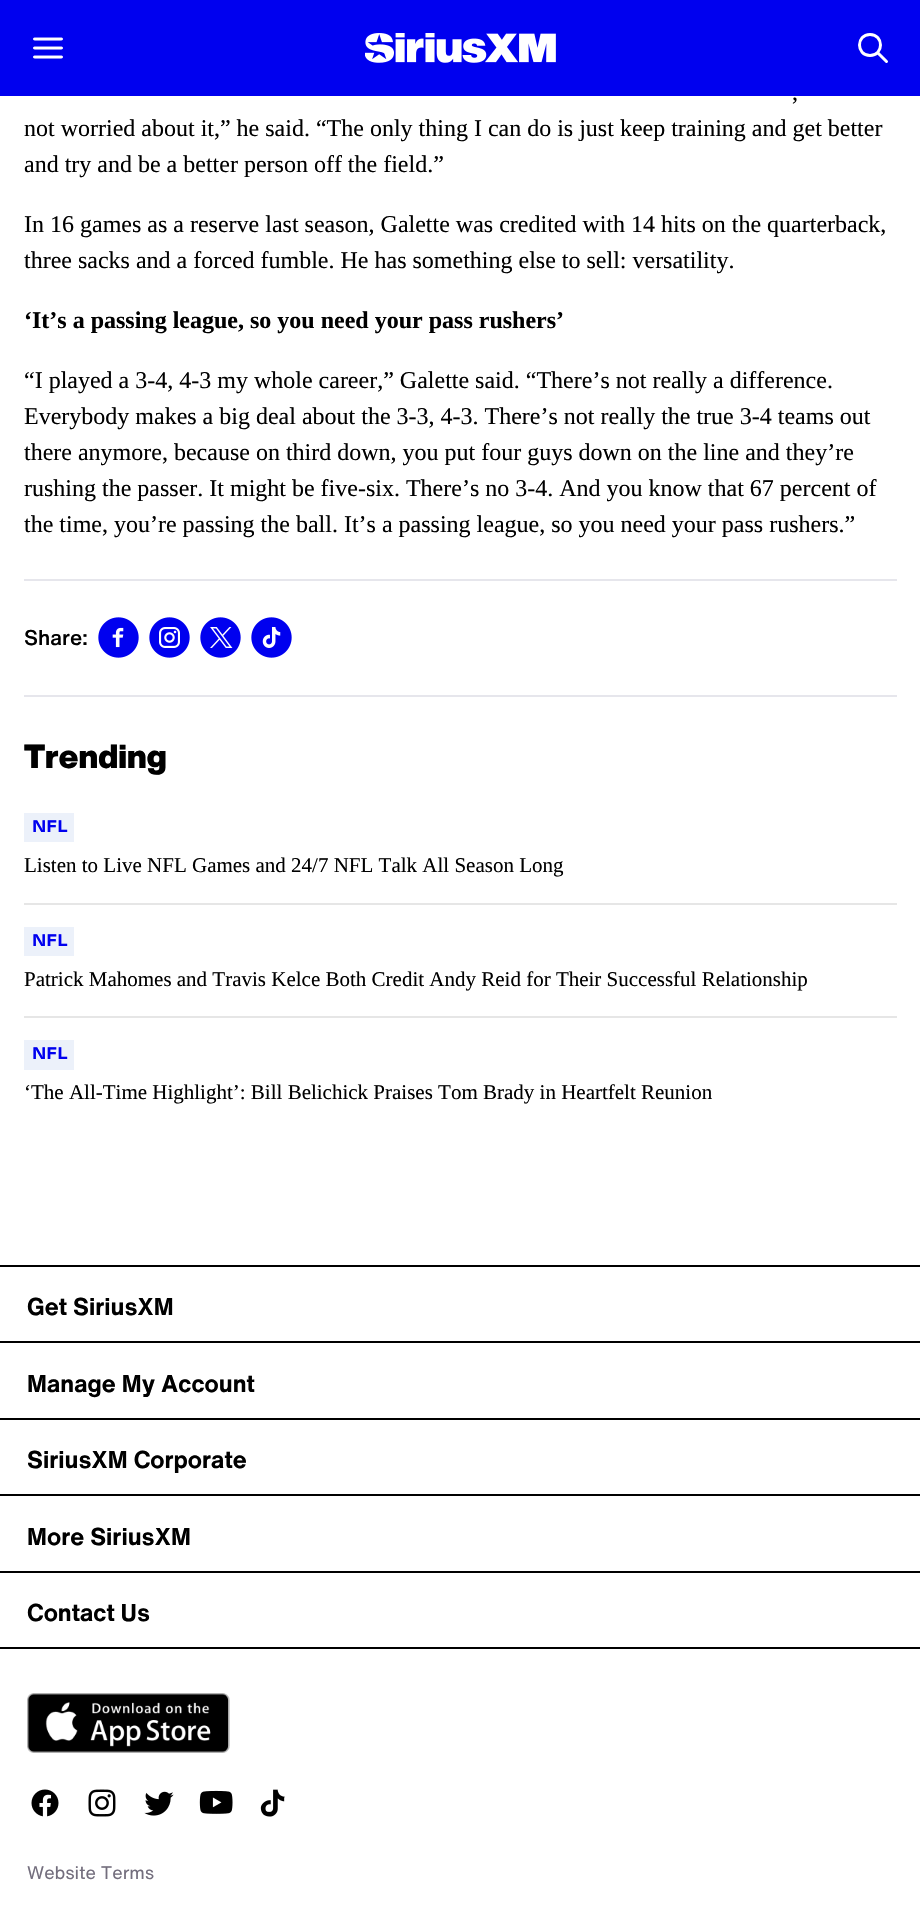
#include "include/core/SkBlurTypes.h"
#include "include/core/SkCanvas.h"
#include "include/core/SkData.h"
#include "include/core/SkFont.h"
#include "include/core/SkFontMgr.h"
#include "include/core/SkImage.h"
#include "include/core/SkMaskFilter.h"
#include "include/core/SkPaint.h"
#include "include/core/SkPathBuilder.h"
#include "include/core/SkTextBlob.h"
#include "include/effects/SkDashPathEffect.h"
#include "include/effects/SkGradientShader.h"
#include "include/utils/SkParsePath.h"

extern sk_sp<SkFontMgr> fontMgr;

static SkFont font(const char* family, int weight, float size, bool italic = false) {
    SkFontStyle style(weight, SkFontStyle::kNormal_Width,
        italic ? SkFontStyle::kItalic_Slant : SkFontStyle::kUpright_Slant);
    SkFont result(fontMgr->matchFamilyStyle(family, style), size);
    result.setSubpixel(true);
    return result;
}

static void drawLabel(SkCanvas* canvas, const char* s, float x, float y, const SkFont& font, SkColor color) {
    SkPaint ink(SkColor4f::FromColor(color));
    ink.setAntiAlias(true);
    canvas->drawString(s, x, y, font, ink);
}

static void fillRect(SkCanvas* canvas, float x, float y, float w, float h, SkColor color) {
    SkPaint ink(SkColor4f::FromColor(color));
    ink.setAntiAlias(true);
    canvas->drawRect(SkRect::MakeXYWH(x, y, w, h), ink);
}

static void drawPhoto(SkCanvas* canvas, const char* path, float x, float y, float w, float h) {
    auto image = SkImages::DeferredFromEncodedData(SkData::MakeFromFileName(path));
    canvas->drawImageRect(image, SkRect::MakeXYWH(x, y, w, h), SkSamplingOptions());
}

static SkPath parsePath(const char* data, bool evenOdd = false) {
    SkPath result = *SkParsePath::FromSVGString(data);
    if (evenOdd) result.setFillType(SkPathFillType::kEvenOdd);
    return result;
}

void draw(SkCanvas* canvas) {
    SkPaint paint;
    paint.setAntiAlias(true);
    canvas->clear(0xFFFFFFFF);
    fillRect(canvas, 0, 0, 920, 96, 0xFF0000EF);
    drawPhoto(canvas, "assets/img1.png", 33, 37, 30, 22);
    drawPhoto(canvas, "assets/img2.png", 365, 33, 191, 30);
    paint.setStroke(true);
    paint.setStrokeWidth(3);
    paint.setStrokeCap(SkPaint::kRound_Cap);
    paint.setStrokeJoin(SkPaint::kRound_Join);
    paint.setColor(0xFFFFFFFF);
    canvas->drawPath(parsePath("M870 55.5C884 55.5 884 34.5 870 34.5C856 34.5 856 55.5 870 55.5ZM886.5 61.5L877.5 52.5"), paint);
    SkFont font1 = font("Liberation Serif", 400, 24);
    drawLabel(canvas, ",", 792, 100, font1, 0xFF000000);
    drawLabel(canvas, "not worried about it,” he said. “The only thing I can do is just keep training and get better", 24, 136, font1, 0xFF000000);
    drawLabel(canvas, "and try and be a better person off the field.”", 24, 172, font1, 0xFF000000);
    drawLabel(canvas, "In 16 games as a reserve last season, Galette was credited with 14 hits on the quarterback,", 24, 232, font1, 0xFF000000);
    drawLabel(canvas, "three sacks and a forced fumble. He has something else to sell: versatility.", 24, 268, font1, 0xFF000000);
    SkFont font2 = font("Liberation Serif", 700, 24);
    drawLabel(canvas, "‘It’s a passing league, so you need your pass rushers’", 24, 328, font2, 0xFF000000);
    drawLabel(canvas, "“I played a 3-4, 4-3 my whole career,” Galette said. “There’s not really a difference.", 24, 388, font1, 0xFF000000);
    drawLabel(canvas, "Everybody makes a big deal about the 3-3, 4-3. There’s not really the true 3-4 teams out", 24, 424, font1, 0xFF000000);
    drawLabel(canvas, "there anymore, because on third down, you put four guys down on the line and they’re", 24, 460, font1, 0xFF000000);
    drawLabel(canvas, "rushing the passer. It might be five-six. There’s no 3-4. And you know that 67 percent of", 24, 496, font1, 0xFF000000);
    drawLabel(canvas, "the time, you’re passing the ball. It’s a passing league, so you need your pass rushers.”", 24, 532, font1, 0xFF000000);
    fillRect(canvas, 24, 579, 873, 2, 0xFFE6E6EC);
    SkFont font3 = font("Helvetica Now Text", 500, 21);
    drawLabel(canvas, "Share:", 24, 645, font3, 0xFF000000);
    drawPhoto(canvas, "assets/img3.png", 98, 617, 41, 41);
    drawPhoto(canvas, "assets/img4.png", 149, 617, 41, 41);
    drawPhoto(canvas, "assets/img5.png", 200, 617, 41, 41);
    drawPhoto(canvas, "assets/img6.png", 251, 617, 41, 41);
    fillRect(canvas, 24, 695, 873, 2, 0xFFE6E6EC);
    SkFont font4 = font("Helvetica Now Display", 900, 33);
    drawLabel(canvas, "Trending", 24, 768, font4, 0xFF000000);
    fillRect(canvas, 24, 903, 873, 2, 0xFFE6E6E6);
    fillRect(canvas, 24, 813, 50, 29, 0xFFECF1FA);
    SkFont font5 = font("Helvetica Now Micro", 700, 16);
    drawLabel(canvas, "NFL", 32, 832, font5, 0xFF0000EF);
    SkFont font6 = font("Liberation Serif", 400, 21);
    drawLabel(canvas, "Listen to Live NFL Games and 24/7 NFL Talk All Season Long", 24, 872, font6, 0xFF000000);
    fillRect(canvas, 24, 1016, 873, 2, 0xFFE6E6E6);
    fillRect(canvas, 24, 927, 50, 29, 0xFFECF1FA);
    drawLabel(canvas, "NFL", 32, 946, font5, 0xFF0000EF);
    drawLabel(canvas, "Patrick Mahomes and Travis Kelce Both Credit Andy Reid for Their Successful Relationship", 24, 986, font6, 0xFF000000);
    fillRect(canvas, 24, 1040, 50, 30, 0xFFECF1FA);
    drawLabel(canvas, "NFL", 32, 1059, font5, 0xFF0000EF);
    drawLabel(canvas, "‘The All-Time Highlight’: Bill Belichick Praises Tom Brady in Heartfelt Reunion", 24, 1099, font6, 0xFF000000);
    fillRect(canvas, 0, 1265, 920, 2, 0xFF000000);
    fillRect(canvas, 0, 1341, 920, 2, 0xFF000000);
    SkFont font7 = font("Helvetica Now Text", 700, 24);
    drawLabel(canvas, "Get SiriusXM", 27, 1315, font7, 0xFF000000);
    fillRect(canvas, 0, 1418, 920, 2, 0xFF000000);
    drawLabel(canvas, "Manage My Account", 27, 1392, font7, 0xFF000000);
    fillRect(canvas, 0, 1494, 920, 2, 0xFF000000);
    drawLabel(canvas, "SiriusXM Corporate", 27, 1468, font7, 0xFF000000);
    fillRect(canvas, 0, 1571, 920, 2, 0xFF000000);
    drawLabel(canvas, "More SiriusXM", 27, 1545, font7, 0xFF000000);
    fillRect(canvas, 0, 1647, 920, 2, 0xFF000000);
    drawLabel(canvas, "Contact Us", 27, 1621, font7, 0xFF000000);
    drawPhoto(canvas, "assets/img7.png", 27, 1693, 203, 60);
    drawPhoto(canvas, "assets/img8.png", 31, 1789, 28, 28);
    drawPhoto(canvas, "assets/img9.png", 88, 1789, 28, 28);
    drawPhoto(canvas, "assets/img10.png", 144, 1791, 30, 25);
    drawPhoto(canvas, "assets/img11.png", 199, 1790, 34, 24);
    drawPhoto(canvas, "assets/img12.png", 260, 1789, 25, 28);
    SkFont font8 = font("Helvetica Now Text", 400, 18);
    drawLabel(canvas, "Website Terms", 27, 1879, font8, 0xFF736E7D);
}
